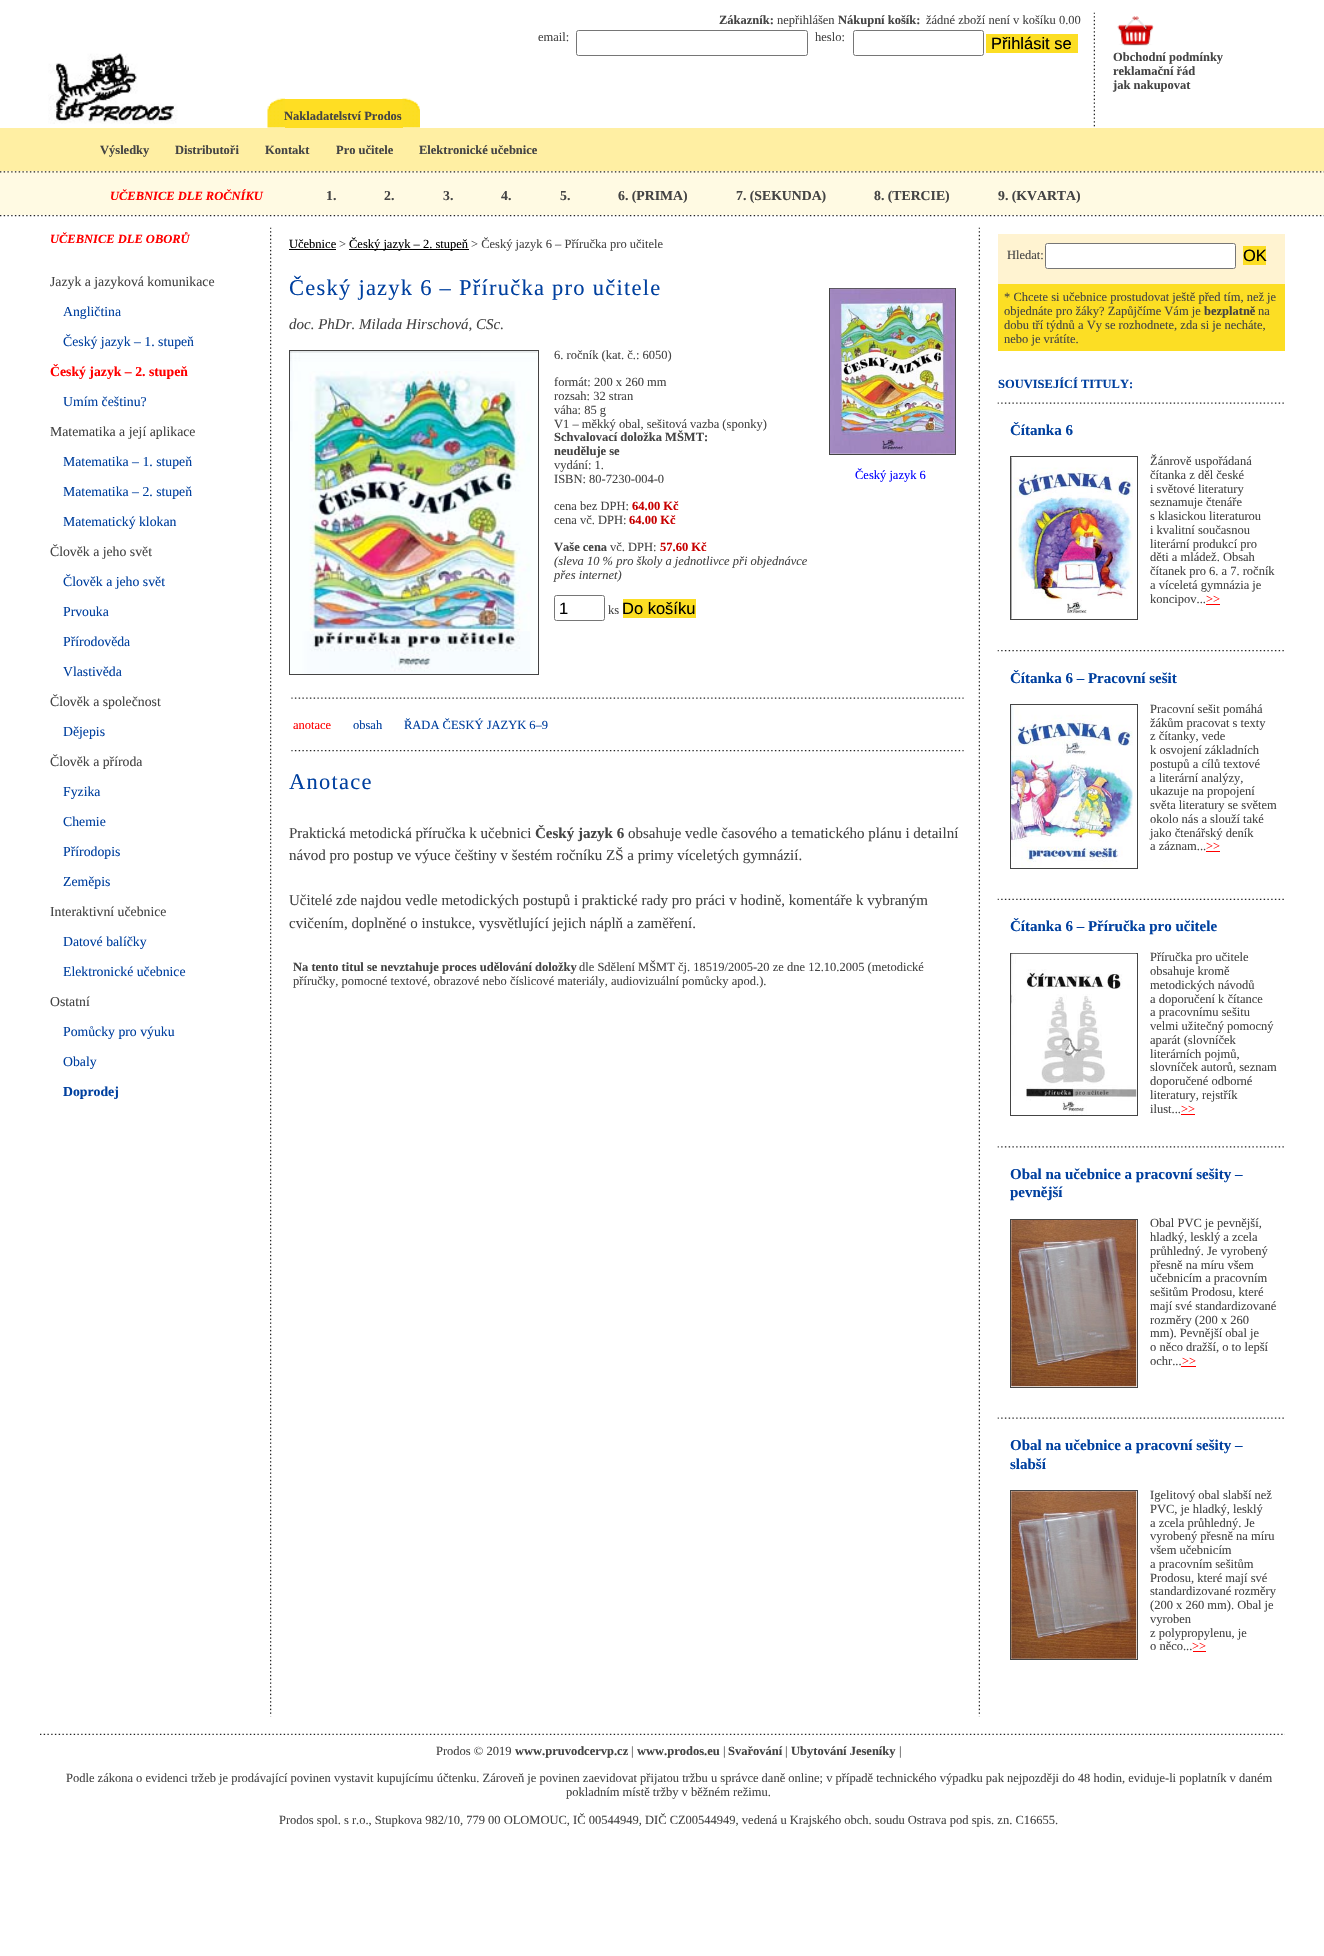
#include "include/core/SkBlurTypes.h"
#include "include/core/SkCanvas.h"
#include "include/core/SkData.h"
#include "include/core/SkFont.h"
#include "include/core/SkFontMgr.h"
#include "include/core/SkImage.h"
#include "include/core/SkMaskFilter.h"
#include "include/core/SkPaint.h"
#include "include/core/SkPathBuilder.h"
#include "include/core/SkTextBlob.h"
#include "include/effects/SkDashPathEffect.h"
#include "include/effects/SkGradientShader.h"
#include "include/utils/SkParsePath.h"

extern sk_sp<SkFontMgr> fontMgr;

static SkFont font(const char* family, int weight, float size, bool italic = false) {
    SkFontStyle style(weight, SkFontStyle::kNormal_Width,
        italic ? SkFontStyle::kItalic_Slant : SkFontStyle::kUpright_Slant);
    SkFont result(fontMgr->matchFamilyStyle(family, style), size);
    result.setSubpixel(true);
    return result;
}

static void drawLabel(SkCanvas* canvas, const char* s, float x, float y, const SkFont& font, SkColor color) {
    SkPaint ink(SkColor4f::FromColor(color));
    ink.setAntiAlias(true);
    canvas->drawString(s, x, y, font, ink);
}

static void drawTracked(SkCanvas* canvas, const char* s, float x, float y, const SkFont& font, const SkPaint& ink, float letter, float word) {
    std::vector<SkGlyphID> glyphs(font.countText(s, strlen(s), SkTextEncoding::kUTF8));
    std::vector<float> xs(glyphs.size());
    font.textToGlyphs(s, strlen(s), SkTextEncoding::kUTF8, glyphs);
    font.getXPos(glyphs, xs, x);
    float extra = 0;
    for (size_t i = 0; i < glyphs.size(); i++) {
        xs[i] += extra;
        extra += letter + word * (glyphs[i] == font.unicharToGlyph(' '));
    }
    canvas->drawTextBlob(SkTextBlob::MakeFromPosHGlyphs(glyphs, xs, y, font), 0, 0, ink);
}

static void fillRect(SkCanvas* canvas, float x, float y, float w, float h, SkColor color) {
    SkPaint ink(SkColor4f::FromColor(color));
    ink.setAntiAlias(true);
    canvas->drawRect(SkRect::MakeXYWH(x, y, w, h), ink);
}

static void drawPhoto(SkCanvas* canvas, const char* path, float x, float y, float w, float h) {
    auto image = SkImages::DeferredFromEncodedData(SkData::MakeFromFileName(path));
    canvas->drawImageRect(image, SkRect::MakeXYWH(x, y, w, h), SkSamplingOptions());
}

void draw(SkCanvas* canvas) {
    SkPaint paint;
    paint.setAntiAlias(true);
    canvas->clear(0xFFFFFFFF);
    SkFont font1 = font("Liberation Serif", 700, 12.5f);
    drawLabel(canvas, "Zákazník:", 719, 24, font1, 0xFF444444);
    SkFont font2 = font("Liberation Serif", 400, 12.5f);
    drawLabel(canvas, "nepřihlášen", 777, 24, font2, 0xFF444444);
    drawLabel(canvas, "Nákupní košík:", 838, 24, font1, 0xFF444444);
    drawLabel(canvas, "žádné zboží není v košíku 0.00", 926, 24, font2, 0xFF444444);
    drawLabel(canvas, "email:", 538, 41, font2, 0xFF444444);
    paint.setStroke(true);
    paint.setStrokeWidth(1);
    paint.setColor(0xFF767676);
    canvas->drawRoundRect(SkRect::MakeXYWH(576.5f, 30.5f, 231, 25), 2, 2, paint);
    drawLabel(canvas, "heslo:", 815, 41, font2, 0xFF444444);
    canvas->drawRoundRect(SkRect::MakeXYWH(853.5f, 30.5f, 130, 25), 2, 2, paint);
    fillRect(canvas, 986, 34, 92, 19, 0xFFFCDE24);
    SkFont font3 = font("Liberation Sans", 400, 16.5f);
    drawLabel(canvas, "Přihlásit se", 991, 49, font3, 0xFF000000);
    drawPhoto(canvas, "assets/img1.png", 48, 53, 130, 71);
    drawPhoto(canvas, "assets/img2.png", 1093, 12, 2, 115);
    drawPhoto(canvas, "assets/img3.png", 1117, 16, 37, 30);
    drawLabel(canvas, "Obchodní podmínky", 1113, 61, font1, 0xFF444444);
    drawLabel(canvas, "reklamační řád", 1113, 75, font1, 0xFF444444);
    drawLabel(canvas, "jak nakupovat", 1113, 89, font1, 0xFF444444);
    drawPhoto(canvas, "assets/img4.png", 267, 98, 18, 30);
    fillRect(canvas, 285, 99, 118, 29, 0xFFFFDE23);
    drawLabel(canvas, "Nakladatelství Prodos", 284, 120, font1, 0xFF444444);
    drawPhoto(canvas, "assets/img5.png", 402, 98, 18, 30);
    fillRect(canvas, 0, 128, 1324, 43, 0xFFFFEFA3);
    fillRect(canvas, 0, 171, 1324, 44, 0xFFFFFAE3);
    drawPhoto(canvas, "assets/img6.png", 0, 171, 1324, 2);
    drawPhoto(canvas, "assets/img7.png", 0, 215, 1324, 2);
    drawLabel(canvas, "Výsledky", 100, 154, font1, 0xFF444444);
    drawLabel(canvas, "Distributoři", 175, 154, font1, 0xFF444444);
    drawLabel(canvas, "Kontakt", 265, 154, font1, 0xFF444444);
    drawLabel(canvas, "Pro učitele", 336, 154, font1, 0xFF444444);
    drawLabel(canvas, "Elektronické učebnice", 419, 154, font1, 0xFF444444);
    SkFont font4 = font("Liberation Serif", 700, 12.5f, true);
    drawLabel(canvas, "UČEBNICE DLE ROČNÍKU", 110, 200, font4, 0xFFFF0000);
    SkFont font5 = font("Liberation Serif", 700, 13.75f);
    drawLabel(canvas, "1.", 326, 200, font5, 0xFF444444);
    drawLabel(canvas, "2.", 384, 200, font5, 0xFF444444);
    drawLabel(canvas, "3.", 443, 200, font5, 0xFF444444);
    drawLabel(canvas, "4.", 501, 200, font5, 0xFF444444);
    drawLabel(canvas, "5.", 560, 200, font5, 0xFF444444);
    drawLabel(canvas, "6. (PRIMA)", 618, 200, font5, 0xFF444444);
    drawLabel(canvas, "7. (SEKUNDA)", 736, 200, font5, 0xFF444444);
    drawLabel(canvas, "8. (TERCIE)", 874, 200, font5, 0xFF444444);
    drawLabel(canvas, "9. (KVARTA)", 998, 200, font5, 0xFF444444);
    drawLabel(canvas, "UČEBNICE DLE OBORŮ", 50, 243, font4, 0xFFFF0000);
    SkFont font6 = font("Liberation Serif", 400, 13.75f);
    drawLabel(canvas, "Jazyk a jazyková komunikace", 50, 286, font6, 0xFF444444);
    drawLabel(canvas, "Angličtina", 63, 316, font6, 0xFF00409F);
    drawLabel(canvas, "Český jazyk – 1. stupeň", 63, 346, font6, 0xFF00409F);
    drawLabel(canvas, "Český jazyk – 2. stupeň", 50, 376, font5, 0xFFFF0000);
    drawLabel(canvas, "Umím češtinu?", 63, 406, font6, 0xFF00409F);
    drawLabel(canvas, "Matematika a její aplikace", 50, 436, font6, 0xFF444444);
    drawLabel(canvas, "Matematika – 1. stupeň", 63, 466, font6, 0xFF00409F);
    drawLabel(canvas, "Matematika – 2. stupeň", 63, 496, font6, 0xFF00409F);
    drawLabel(canvas, "Matematický klokan", 63, 526, font6, 0xFF00409F);
    drawLabel(canvas, "Člověk a jeho svět", 50, 556, font6, 0xFF444444);
    drawLabel(canvas, "Člověk a jeho svět", 63, 586, font6, 0xFF00409F);
    drawLabel(canvas, "Prvouka", 63, 616, font6, 0xFF00409F);
    drawLabel(canvas, "Přírodověda", 63, 646, font6, 0xFF00409F);
    drawLabel(canvas, "Vlastivěda", 63, 676, font6, 0xFF00409F);
    drawLabel(canvas, "Člověk a společnost", 50, 706, font6, 0xFF444444);
    drawLabel(canvas, "Dějepis", 63, 736, font6, 0xFF00409F);
    drawLabel(canvas, "Člověk a příroda", 50, 766, font6, 0xFF444444);
    drawLabel(canvas, "Fyzika", 63, 796, font6, 0xFF00409F);
    drawLabel(canvas, "Chemie", 63, 826, font6, 0xFF00409F);
    drawLabel(canvas, "Přírodopis", 63, 856, font6, 0xFF00409F);
    drawLabel(canvas, "Zeměpis", 63, 886, font6, 0xFF00409F);
    drawLabel(canvas, "Interaktivní učebnice", 50, 916, font6, 0xFF444444);
    drawLabel(canvas, "Datové balíčky", 63, 946, font6, 0xFF00409F);
    drawLabel(canvas, "Elektronické učebnice", 63, 976, font6, 0xFF00409F);
    drawLabel(canvas, "Ostatní", 50, 1006, font6, 0xFF444444);
    drawLabel(canvas, "Pomůcky pro výuku", 63, 1036, font6, 0xFF00409F);
    drawLabel(canvas, "Obaly", 63, 1066, font6, 0xFF00409F);
    drawLabel(canvas, "Doprodej", 63, 1096, font5, 0xFF00409F);
    drawPhoto(canvas, "assets/img8.png", 270, 227, 2, 1490);
    drawLabel(canvas, "Učebnice", 289, 248, font2, 0xFF000000);
    fillRect(canvas, 289, 249, 47, 1, 0xFF000000);
    drawLabel(canvas, ">", 339, 248, font2, 0xFF444444);
    fillRect(canvas, 349, 249, 120, 1, 0xFF000000);
    drawLabel(canvas, "Český jazyk – 2. stupeň", 349, 248, font2, 0xFF000000);
    drawLabel(canvas, "> Český jazyk 6 – Příručka pro učitele", 471, 248, font2, 0xFF444444);
    SkFont font7 = font("Liberation Serif", 400, 22.5f);
    paint.setStroke(false);
    paint.setColor(0xFF00409F);
    drawTracked(canvas, "Český jazyk 6 – Příručka pro učitele", 289, 295, font7, paint, 1.25f, 0);
    SkFont font8 = font("Liberation Serif", 400, 15, true);
    drawLabel(canvas, "doc. PhDr. Milada Hirschová, CSc.", 289, 329, font8, 0xFF444444);
    paint.setStroke(true);
    paint.setColor(0xFF444444);
    canvas->drawRect(SkRect::MakeXYWH(289.5f, 350.5f, 249, 324), paint);
    drawPhoto(canvas, "assets/img9.png", 290, 351, 248, 323);
    drawLabel(canvas, "6. ročník (kat. č.: 6050)", 554, 359, font2, 0xFF444444);
    drawLabel(canvas, "formát: 200 x 260 mm", 554, 386, font2, 0xFF444444);
    drawLabel(canvas, "rozsah: 32 stran", 554, 400, font2, 0xFF444444);
    drawLabel(canvas, "váha: 85 g", 554, 414, font2, 0xFF444444);
    drawLabel(canvas, "V1 – měkký obal, sešitová vazba (sponky)", 554, 428, font2, 0xFF444444);
    drawLabel(canvas, "Schvalovací doložka MŠMT:", 554, 441, font1, 0xFF444444);
    drawLabel(canvas, "neuděluje se", 554, 455, font1, 0xFF444444);
    drawLabel(canvas, "vydání: 1.", 554, 469, font2, 0xFF444444);
    drawLabel(canvas, "ISBN: 80-7230-004-0", 554, 483, font2, 0xFF444444);
    drawLabel(canvas, "cena bez DPH:", 554, 510, font2, 0xFF444444);
    drawLabel(canvas, "64.00 Kč", 632, 510, font1, 0xFFC70000);
    drawLabel(canvas, "cena vč. DPH:", 554, 524, font2, 0xFF444444);
    drawLabel(canvas, "64.00 Kč", 629, 524, font1, 0xFFC70000);
    drawLabel(canvas, "Vaše cena", 554, 551, font1, 0xFF444444);
    drawLabel(canvas, "vč. DPH:", 610, 551, font2, 0xFF444444);
    drawLabel(canvas, "57.60 Kč", 660, 551, font1, 0xFFC70000);
    SkFont font9 = font("Liberation Serif", 400, 12.5f, true);
    drawLabel(canvas, "(sleva 10 % pro školy a jednotlivce při objednávce", 554, 565, font9, 0xFF444444);
    drawLabel(canvas, "přes internet)", 554, 579, font9, 0xFF444444);
    paint.setColor(0xFF767676);
    canvas->drawRoundRect(SkRect::MakeXYWH(554.5f, 595.5f, 50, 25), 2, 2, paint);
    drawLabel(canvas, "1", 559, 614, font3, 0xFF000000);
    drawLabel(canvas, "ks", 608, 614, font2, 0xFF444444);
    fillRect(canvas, 623, 599, 73, 19, 0xFFFCDE24);
    drawLabel(canvas, "Do košíku", 622, 614, font3, 0xFF000000);
    paint.setColor(0xFF444444);
    canvas->drawRect(SkRect::MakeXYWH(829.5f, 288.5f, 126, 166), paint);
    drawPhoto(canvas, "assets/img10.png", 830, 288, 125, 166);
    drawLabel(canvas, "Český jazyk 6", 855, 479, font2, 0xFF0000FF);
    drawPhoto(canvas, "assets/img11.png", 291, 697, 673, 2);
    drawLabel(canvas, "anotace", 293, 729, font2, 0xFFFF0000);
    drawLabel(canvas, "obsah", 353, 729, font2, 0xFF00409F);
    drawLabel(canvas, "ŘADA ČESKÝ JAZYK 6–9", 404, 729, font2, 0xFF00409F);
    drawPhoto(canvas, "assets/img12.png", 291, 750, 673, 2);
    paint.setStroke(false);
    paint.setColor(0xFF00409F);
    drawTracked(canvas, "Anotace", 289, 789, font7, paint, 1.25f, 0);
    SkFont font10 = font("Liberation Serif", 400, 15);
    drawLabel(canvas, "Praktická metodická příručka k učebnici", 289, 838, font10, 0xFF444444);
    SkFont font11 = font("Liberation Serif", 700, 15);
    drawLabel(canvas, "Český jazyk 6", 535, 838, font11, 0xFF444444);
    drawLabel(canvas, "obsahuje vedle časového a tematického plánu i detailní", 628, 838, font10, 0xFF444444);
    drawLabel(canvas, "návod pro postup ve výuce češtiny v šestém ročníku ZŠ a primy víceletých gymnázií.", 289, 860, font10, 0xFF444444);
    drawLabel(canvas, "Učitelé zde najdou vedle metodických postupů i praktické rady pro práci v hodině, komentáře k vybraným", 289, 905, font10, 0xFF444444);
    drawLabel(canvas, "cvičením, doplněné o instukce, vysvětlující jejich náplň a zaměření.", 289, 928, font10, 0xFF444444);
    drawLabel(canvas, "Na tento titul se nevztahuje proces udělování doložky", 293, 971, font1, 0xFF444444);
    drawLabel(canvas, "dle Sdělení MŠMT čj. 18519/2005-20 ze dne 12.10.2005 (metodické", 579, 971, font2, 0xFF444444);
    drawLabel(canvas, "příručky, pomocné textové, obrazové nebo číslicové materiály, audiovizuální pomůcky apod.).", 293, 985, font2, 0xFF444444);
    drawPhoto(canvas, "assets/img13.png", 978, 227, 2, 1490);
    fillRect(canvas, 998, 234, 287, 50, 0xFFFFF3D1);
    drawLabel(canvas, "Hledat:", 1007, 259, font2, 0xFF444444);
    paint.setColor(0xFFFFFFFF);
    canvas->drawRoundRect(SkRect::MakeXYWH(1045.5f, 243.5f, 190, 25), 2, 2, paint);
    paint.setStroke(true);
    paint.setColor(0xFF767676);
    canvas->drawRoundRect(SkRect::MakeXYWH(1045.5f, 243.5f, 190, 25), 2, 2, paint);
    fillRect(canvas, 1243, 246, 23, 19, 0xFFFCDE24);
    drawLabel(canvas, "OK", 1243, 261, font3, 0xFF000000);
    fillRect(canvas, 998, 284, 287, 67, 0xFFFCDE24);
    drawLabel(canvas, "* Chcete si učebnice prostudovat ještě před tím, než je", 1004, 301, font2, 0xFF444444);
    drawLabel(canvas, "objednáte pro žáky? Zapůjčíme Vám je", 1004, 315, font2, 0xFF444444);
    drawLabel(canvas, "bezplatně", 1204, 315, font1, 0xFF444444);
    drawLabel(canvas, "na", 1258, 315, font2, 0xFF444444);
    drawLabel(canvas, "dobu tří týdnů a Vy se rozhodnete, zda si je necháte,", 1004, 329, font2, 0xFF444444);
    drawLabel(canvas, "nebo je vrátíte.", 1004, 343, font2, 0xFF444444);
    drawLabel(canvas, "SOUVISEJÍCÍ TITULY:", 998, 388, font1, 0xFF00409F);
    drawPhoto(canvas, "assets/img14.png", 997, 402, 287, 2);
    drawLabel(canvas, "Čítanka 6", 1010, 435, font11, 0xFF00409F);
    paint.setColor(0xFF444444);
    canvas->drawRect(SkRect::MakeXYWH(1010.5f, 456.5f, 127, 163), paint);
    drawPhoto(canvas, "assets/img15.png", 1011, 457, 122, 162);
    drawLabel(canvas, "Žánrově uspořádaná", 1150, 465, font2, 0xFF444444);
    drawLabel(canvas, "čítanka z děl české", 1150, 479, font2, 0xFF444444);
    drawLabel(canvas, "i světové literatury", 1150, 493, font2, 0xFF444444);
    drawLabel(canvas, "seznamuje čtenáře", 1150, 506, font2, 0xFF444444);
    drawLabel(canvas, "s klasickou literaturou", 1150, 520, font2, 0xFF444444);
    drawLabel(canvas, "i kvalitní současnou", 1150, 534, font2, 0xFF444444);
    drawLabel(canvas, "literární produkcí pro", 1150, 548, font2, 0xFF444444);
    drawLabel(canvas, "děti a mládež. Obsah", 1150, 561, font2, 0xFF444444);
    drawLabel(canvas, "čítanek pro 6. a 7. ročník", 1150, 575, font2, 0xFF444444);
    drawLabel(canvas, "a víceletá gymnázia je", 1150, 589, font2, 0xFF444444);
    drawLabel(canvas, "koncipov...", 1150, 603, font2, 0xFF444444);
    drawLabel(canvas, ">>", 1206, 603, font2, 0xFFFF0000);
    fillRect(canvas, 1206, 604, 14, 1, 0xFFFF0000);
    drawPhoto(canvas, "assets/img16.png", 997, 650, 287, 2);
    drawLabel(canvas, "Čítanka 6 – Pracovní sešit", 1010, 683, font11, 0xFF00409F);
    canvas->drawRect(SkRect::MakeXYWH(1010.5f, 704.5f, 127, 164), paint);
    drawPhoto(canvas, "assets/img17.png", 1011, 705, 122, 162);
    drawLabel(canvas, "Pracovní sešit pomáhá", 1150, 713, font2, 0xFF444444);
    drawLabel(canvas, "žákům pracovat s texty", 1150, 727, font2, 0xFF444444);
    drawLabel(canvas, "z čítanky, vede", 1150, 740, font2, 0xFF444444);
    drawLabel(canvas, "k osvojení základních", 1150, 754, font2, 0xFF444444);
    drawLabel(canvas, "postupů a cílů textové", 1150, 768, font2, 0xFF444444);
    drawLabel(canvas, "a literární analýzy,", 1150, 782, font2, 0xFF444444);
    drawLabel(canvas, "ukazuje na propojení", 1150, 795, font2, 0xFF444444);
    drawLabel(canvas, "světa literatury se světem", 1150, 809, font2, 0xFF444444);
    drawLabel(canvas, "okolo nás a slouží také", 1150, 823, font2, 0xFF444444);
    drawLabel(canvas, "jako čtenářský deník", 1150, 837, font2, 0xFF444444);
    drawLabel(canvas, "a záznam...", 1150, 850, font2, 0xFF444444);
    drawLabel(canvas, ">>", 1206, 850, font2, 0xFFFF0000);
    fillRect(canvas, 1206, 851, 14, 1, 0xFFFF0000);
    drawPhoto(canvas, "assets/img18.png", 997, 898, 287, 2);
    drawLabel(canvas, "Čítanka 6 – Příručka pro učitele", 1010, 931, font11, 0xFF00409F);
    canvas->drawRect(SkRect::MakeXYWH(1010.5f, 953.5f, 127, 162), paint);
    drawPhoto(canvas, "assets/img19.png", 1011, 953, 126, 162);
    drawLabel(canvas, "Příručka pro učitele", 1150, 961, font2, 0xFF444444);
    drawLabel(canvas, "obsahuje kromě", 1150, 975, font2, 0xFF444444);
    drawLabel(canvas, "metodických návodů", 1150, 989, font2, 0xFF444444);
    drawLabel(canvas, "a doporučení k čítance", 1150, 1003, font2, 0xFF444444);
    drawLabel(canvas, "a pracovnímu sešitu", 1150, 1016, font2, 0xFF444444);
    drawLabel(canvas, "velmi užitečný pomocný", 1150, 1030, font2, 0xFF444444);
    drawLabel(canvas, "aparát (slovníček", 1150, 1044, font2, 0xFF444444);
    drawLabel(canvas, "literárních pojmů,", 1150, 1058, font2, 0xFF444444);
    drawLabel(canvas, "slovníček autorů, seznam", 1150, 1071, font2, 0xFF444444);
    drawLabel(canvas, "doporučené odborné", 1150, 1085, font2, 0xFF444444);
    drawLabel(canvas, "literatury, rejstřík", 1150, 1099, font2, 0xFF444444);
    drawLabel(canvas, "ilust...", 1150, 1113, font2, 0xFF444444);
    drawLabel(canvas, ">>", 1181, 1113, font2, 0xFFFF0000);
    fillRect(canvas, 1181, 1114, 14, 1, 0xFFFF0000);
    drawPhoto(canvas, "assets/img20.png", 997, 1146, 287, 2);
    drawLabel(canvas, "Obal na učebnice a pracovní sešity –", 1010, 1179, font11, 0xFF00409F);
    drawLabel(canvas, "pevnější", 1010, 1197, font11, 0xFF00409F);
    canvas->drawRect(SkRect::MakeXYWH(1010.5f, 1219.5f, 127, 168), paint);
    drawPhoto(canvas, "assets/img21.png", 1011, 1220, 126, 167);
    drawLabel(canvas, "Obal PVC je pevnější,", 1150, 1227, font2, 0xFF444444);
    drawLabel(canvas, "hladký, lesklý a zcela", 1150, 1241, font2, 0xFF444444);
    drawLabel(canvas, "průhledný. Je vyrobený", 1150, 1255, font2, 0xFF444444);
    drawLabel(canvas, "přesně na míru všem", 1150, 1269, font2, 0xFF444444);
    drawLabel(canvas, "učebnicím a pracovním", 1150, 1282, font2, 0xFF444444);
    drawLabel(canvas, "sešitům Prodosu, které", 1150, 1296, font2, 0xFF444444);
    drawLabel(canvas, "mají své standardizované", 1150, 1310, font2, 0xFF444444);
    drawLabel(canvas, "rozměry (200 x 260", 1150, 1324, font2, 0xFF444444);
    drawLabel(canvas, "mm). Pevnější obal je", 1150, 1337, font2, 0xFF444444);
    drawLabel(canvas, "o něco dražší, o to lepší", 1150, 1351, font2, 0xFF444444);
    drawLabel(canvas, "ochr...", 1150, 1365, font2, 0xFF444444);
    drawLabel(canvas, ">>", 1182, 1365, font2, 0xFFFF0000);
    fillRect(canvas, 1181, 1366, 15, 1, 0xFFFF0000);
    drawPhoto(canvas, "assets/img14.png", 997, 1417, 287, 2);
    drawLabel(canvas, "Obal na učebnice a pracovní sešity –", 1010, 1450, font11, 0xFF00409F);
    drawLabel(canvas, "slabší", 1010, 1469, font11, 0xFF00409F);
    canvas->drawRect(SkRect::MakeXYWH(1010.5f, 1490.5f, 127, 169), paint);
    drawPhoto(canvas, "assets/img22.png", 1011, 1491, 126, 168);
    drawLabel(canvas, "Igelitový obal slabší než", 1150, 1499, font2, 0xFF444444);
    drawLabel(canvas, "PVC, je hladký, lesklý", 1150, 1513, font2, 0xFF444444);
    drawLabel(canvas, "a zcela průhledný. Je", 1150, 1527, font2, 0xFF444444);
    drawLabel(canvas, "vyrobený přesně na míru", 1150, 1540, font2, 0xFF444444);
    drawLabel(canvas, "všem učebnicím", 1150, 1554, font2, 0xFF444444);
    drawLabel(canvas, "a pracovním sešitům", 1150, 1568, font2, 0xFF444444);
    drawLabel(canvas, "Prodosu, které mají své", 1150, 1582, font2, 0xFF444444);
    drawLabel(canvas, "standardizované rozměry", 1150, 1595, font2, 0xFF444444);
    drawLabel(canvas, "(200 x 260 mm). Obal je", 1150, 1609, font2, 0xFF444444);
    drawLabel(canvas, "vyroben", 1150, 1623, font2, 0xFF444444);
    drawLabel(canvas, "z polypropylenu, je", 1150, 1637, font2, 0xFF444444);
    drawLabel(canvas, "o něco...", 1150, 1650, font2, 0xFF444444);
    drawLabel(canvas, ">>", 1192, 1650, font2, 0xFFFF0000);
    fillRect(canvas, 1193, 1651, 13, 1, 0xFFFF0000);
    drawPhoto(canvas, "assets/img23.png", 40, 1733, 1245, 2);
    drawLabel(canvas, "Prodos © 2019", 436, 1755, font2, 0xFF444444);
    drawLabel(canvas, "www.pruvodcervp.cz", 515, 1755, font1, 0xFF444444);
    drawLabel(canvas, "|", 631, 1755, font2, 0xFF444444);
    drawLabel(canvas, "www.prodos.eu", 637, 1755, font1, 0xFF444444);
    drawLabel(canvas, "|", 723, 1755, font2, 0xFF444444);
    drawLabel(canvas, "Svařování", 728, 1755, font1, 0xFF444444);
    drawLabel(canvas, "|", 785, 1755, font2, 0xFF444444);
    drawLabel(canvas, "Ubytování Jeseníky", 791, 1755, font1, 0xFF444444);
    drawLabel(canvas, "|", 899, 1755, font2, 0xFF444444);
    drawLabel(canvas, "Podle zákona o evidenci tržeb je prodávající povinen vystavit kupujícímu účtenku. Zároveň je povinen zaevidovat přijatou tržbu u správce daně online; v případě technického výpadku pak nejpozději do 48 hodin, eviduje-li poplatník v daném", 66, 1782, font2, 0xFF444444);
    drawLabel(canvas, "pokladním místě tržby v běžném režimu.", 566, 1796, font2, 0xFF444444);
    drawLabel(canvas, "Prodos spol. s r.o., Stupkova 982/10, 779 00 OLOMOUC, IČ 00544949, DIČ CZ00544949, vedená u Krajského obch. soudu Ostrava pod spis. zn. C16655.", 279, 1824, font2, 0xFF444444);
}
